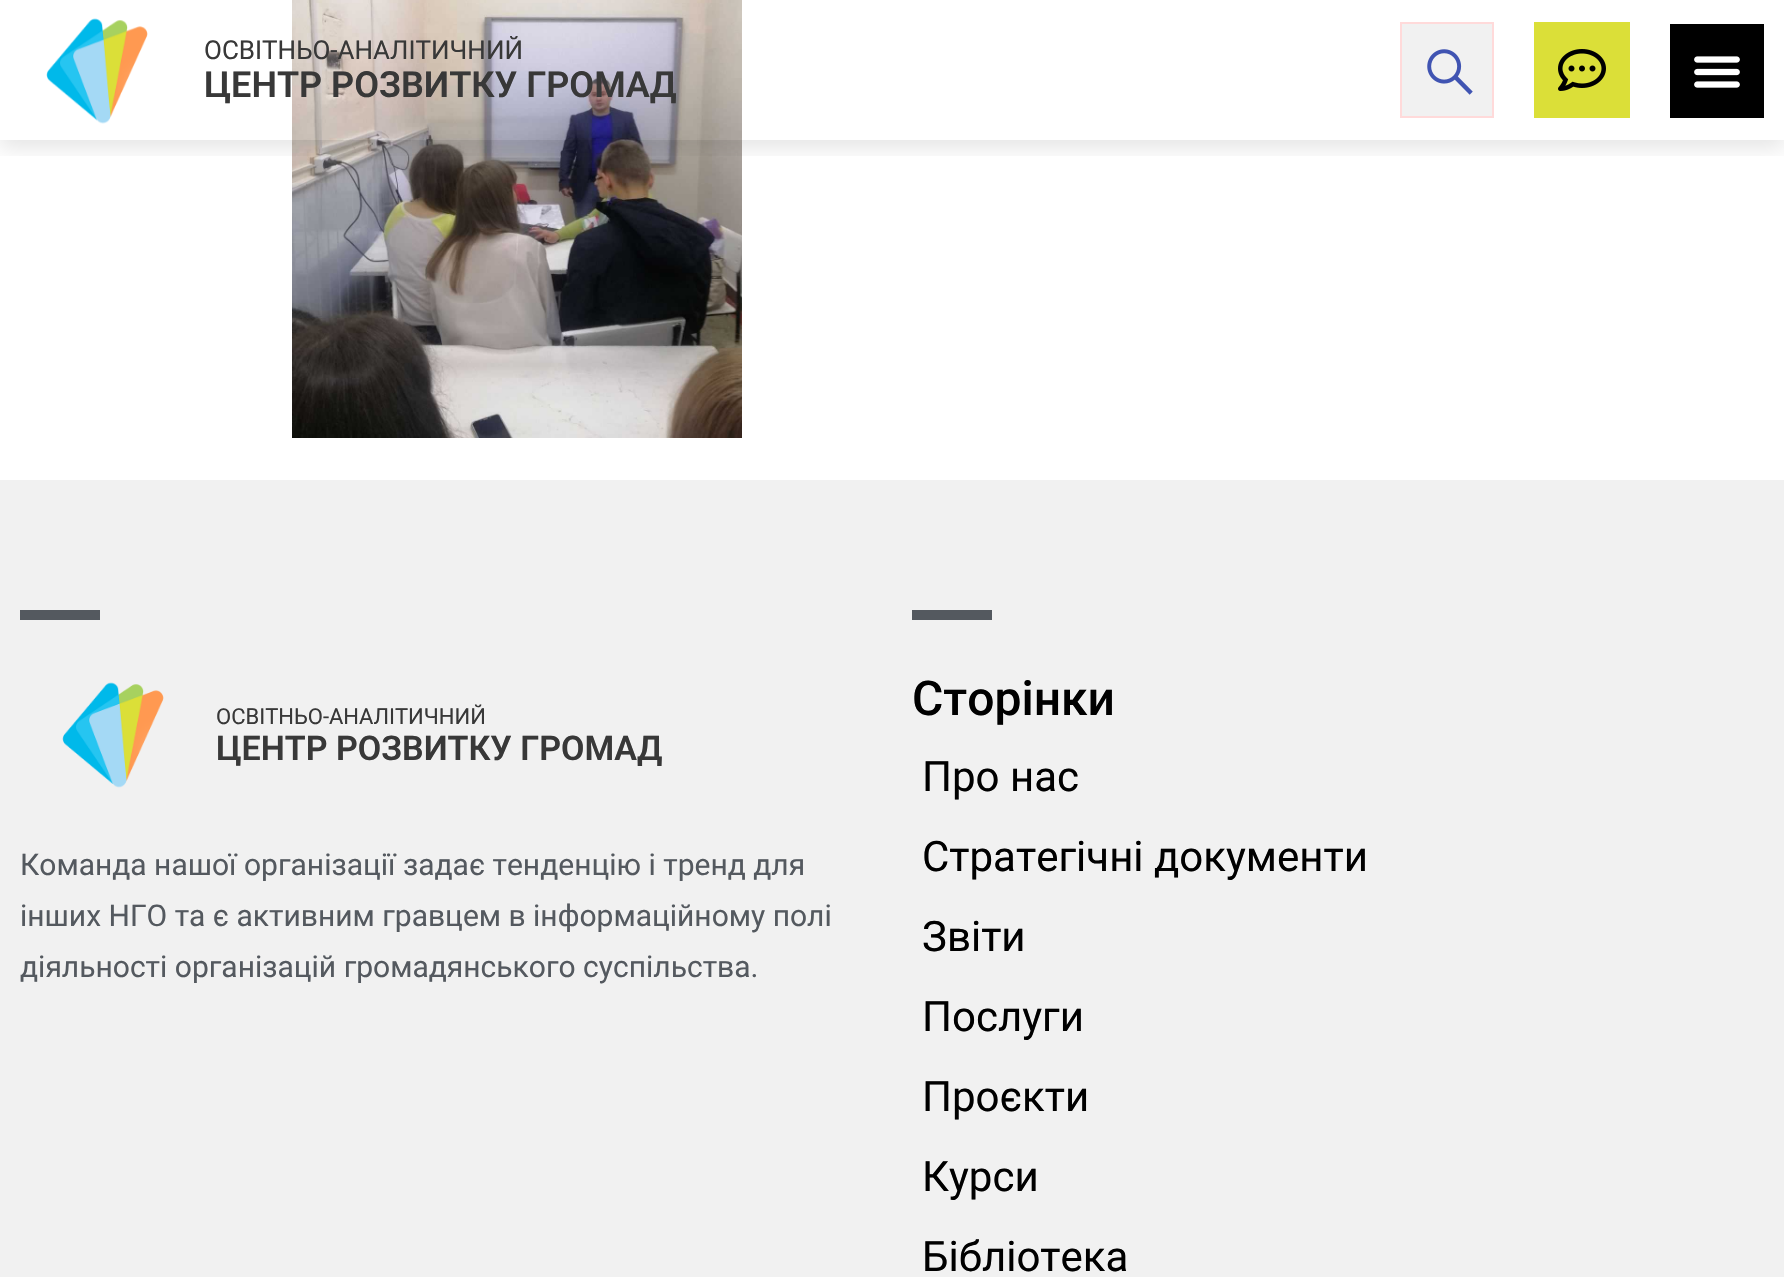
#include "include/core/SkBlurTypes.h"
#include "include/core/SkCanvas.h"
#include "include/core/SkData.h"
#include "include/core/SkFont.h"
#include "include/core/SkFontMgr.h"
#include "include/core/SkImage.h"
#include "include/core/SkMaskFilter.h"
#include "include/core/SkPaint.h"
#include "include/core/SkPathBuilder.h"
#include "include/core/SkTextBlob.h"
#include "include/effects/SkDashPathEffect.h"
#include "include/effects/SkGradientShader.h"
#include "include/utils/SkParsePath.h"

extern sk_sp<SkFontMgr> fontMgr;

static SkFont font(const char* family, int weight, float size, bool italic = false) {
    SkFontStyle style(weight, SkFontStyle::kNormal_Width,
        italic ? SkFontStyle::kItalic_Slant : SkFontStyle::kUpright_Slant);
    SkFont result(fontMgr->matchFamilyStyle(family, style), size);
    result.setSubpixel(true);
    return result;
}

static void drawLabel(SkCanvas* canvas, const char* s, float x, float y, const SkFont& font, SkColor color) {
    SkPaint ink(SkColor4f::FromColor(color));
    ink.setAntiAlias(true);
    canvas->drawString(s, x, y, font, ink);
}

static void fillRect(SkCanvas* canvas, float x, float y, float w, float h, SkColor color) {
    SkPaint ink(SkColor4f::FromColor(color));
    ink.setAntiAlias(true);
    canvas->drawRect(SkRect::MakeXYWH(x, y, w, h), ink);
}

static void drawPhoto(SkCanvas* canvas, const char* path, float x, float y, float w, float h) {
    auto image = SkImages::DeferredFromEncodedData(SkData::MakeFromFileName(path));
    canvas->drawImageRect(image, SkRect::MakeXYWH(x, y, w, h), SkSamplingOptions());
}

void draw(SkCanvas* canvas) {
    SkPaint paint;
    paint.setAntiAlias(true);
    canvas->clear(0xFFFFFFFF);
    drawPhoto(canvas, "assets/img1.png", 292, 0, 450, 438);
    canvas->save();
    canvas->clipRect(SkRect::MakeXYWH(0, 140, 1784, 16));
    paint.setColor(0x1A000000);
    paint.setMaskFilter(SkMaskFilter::MakeBlur(kNormal_SkBlurStyle, 10));
    canvas->drawRect(SkRect::MakeXYWH(0, 8, 1784, 140), paint);
    paint.setMaskFilter(nullptr);
    canvas->restore();
    drawPhoto(canvas, "assets/img2.png", 46, 18, 102, 106);
    SkFont font1 = font("Roboto", 400, 26);
    drawLabel(canvas, "ОСВІТНЬО-АНАЛІТИЧНИЙ", 204, 59, font1, 0xFF383838);
    SkFont font2 = font("Roboto", 600, 36);
    drawLabel(canvas, "ЦЕНТР РОЗВИТКУ ГРОМАД", 204, 97, font2, 0xFF383838);
    paint.setColor(0xFFF1F1F1);
    canvas->drawRect(SkRect::MakeXYWH(1401, 23, 92, 94), paint);
    paint.setStroke(true);
    paint.setStrokeWidth(2);
    paint.setColor(0xFFFFDADA);
    canvas->drawRect(SkRect::MakeXYWH(1401, 23, 92, 94), paint);
    drawPhoto(canvas, "assets/img3.png", 1427, 49, 46, 46);
    fillRect(canvas, 1534, 22, 96, 96, 0xFFDBDF38);
    drawPhoto(canvas, "assets/img4.png", 1558, 49, 48, 42);
    fillRect(canvas, 1670, 24, 94, 94, 0xFF000000);
    drawPhoto(canvas, "assets/img5.png", 1694, 56, 46, 32);
    fillRect(canvas, 0, 480, 1784, 797, 0xFFF1F1F1);
    fillRect(canvas, 20, 610, 80, 10, 0xFF54595F);
    drawPhoto(canvas, "assets/img6.png", 62, 682, 102, 106);
    SkFont font3 = font("Roboto", 400, 22);
    drawLabel(canvas, "ОСВІТНЬО-АНАЛІТИЧНИЙ", 216, 724, font3, 0xFF383838);
    SkFont font4 = font("Roboto", 600, 34);
    drawLabel(canvas, "ЦЕНТР РОЗВИТКУ ГРОМАД", 216, 760, font4, 0xFF383838);
    SkFont font5 = font("Roboto", 400, 30);
    drawLabel(canvas, "Команда нашої організації задає тенденцію і тренд для", 20, 875, font5, 0xFF54595F);
    drawLabel(canvas, "інших НГО та є активним гравцем в інформаційному полі", 20, 926, font5, 0xFF54595F);
    drawLabel(canvas, "діяльності організацій громадянського суспільства.", 20, 977, font5, 0xFF54595F);
    fillRect(canvas, 912, 610, 80, 10, 0xFF54595F);
    SkFont font6 = font("Roboto", 500, 48);
    drawLabel(canvas, "Сторінки", 912, 715, font6, 0xFF000000);
    SkFont font7 = font("Roboto", 400, 42);
    drawLabel(canvas, "Про нас", 922, 791, font7, 0xFF000000);
    drawLabel(canvas, "Стратегічні документи", 922, 871, font7, 0xFF000000);
    drawLabel(canvas, "Звіти", 922, 951, font7, 0xFF000000);
    drawLabel(canvas, "Послуги", 922, 1031, font7, 0xFF000000);
    drawLabel(canvas, "Проєкти", 922, 1111, font7, 0xFF000000);
    drawLabel(canvas, "Курси", 922, 1191, font7, 0xFF000000);
    drawLabel(canvas, "Бібліотека", 922, 1271, font7, 0xFF000000);
}
